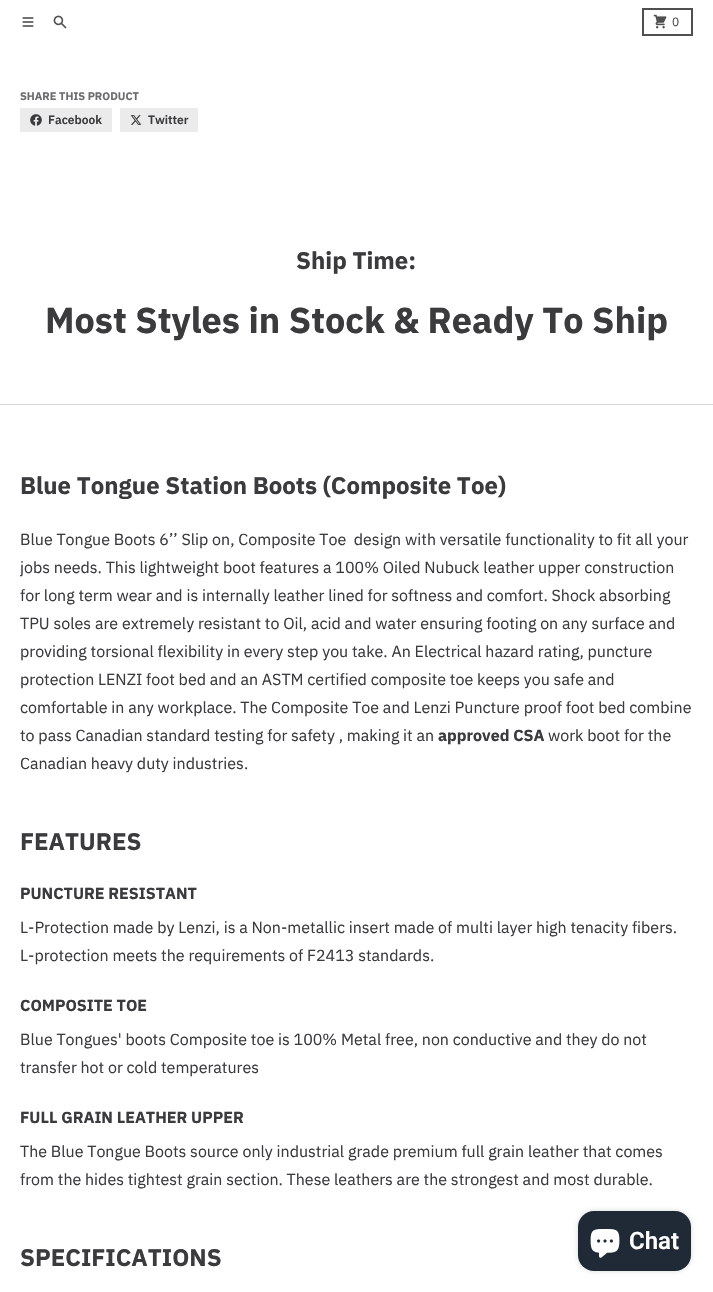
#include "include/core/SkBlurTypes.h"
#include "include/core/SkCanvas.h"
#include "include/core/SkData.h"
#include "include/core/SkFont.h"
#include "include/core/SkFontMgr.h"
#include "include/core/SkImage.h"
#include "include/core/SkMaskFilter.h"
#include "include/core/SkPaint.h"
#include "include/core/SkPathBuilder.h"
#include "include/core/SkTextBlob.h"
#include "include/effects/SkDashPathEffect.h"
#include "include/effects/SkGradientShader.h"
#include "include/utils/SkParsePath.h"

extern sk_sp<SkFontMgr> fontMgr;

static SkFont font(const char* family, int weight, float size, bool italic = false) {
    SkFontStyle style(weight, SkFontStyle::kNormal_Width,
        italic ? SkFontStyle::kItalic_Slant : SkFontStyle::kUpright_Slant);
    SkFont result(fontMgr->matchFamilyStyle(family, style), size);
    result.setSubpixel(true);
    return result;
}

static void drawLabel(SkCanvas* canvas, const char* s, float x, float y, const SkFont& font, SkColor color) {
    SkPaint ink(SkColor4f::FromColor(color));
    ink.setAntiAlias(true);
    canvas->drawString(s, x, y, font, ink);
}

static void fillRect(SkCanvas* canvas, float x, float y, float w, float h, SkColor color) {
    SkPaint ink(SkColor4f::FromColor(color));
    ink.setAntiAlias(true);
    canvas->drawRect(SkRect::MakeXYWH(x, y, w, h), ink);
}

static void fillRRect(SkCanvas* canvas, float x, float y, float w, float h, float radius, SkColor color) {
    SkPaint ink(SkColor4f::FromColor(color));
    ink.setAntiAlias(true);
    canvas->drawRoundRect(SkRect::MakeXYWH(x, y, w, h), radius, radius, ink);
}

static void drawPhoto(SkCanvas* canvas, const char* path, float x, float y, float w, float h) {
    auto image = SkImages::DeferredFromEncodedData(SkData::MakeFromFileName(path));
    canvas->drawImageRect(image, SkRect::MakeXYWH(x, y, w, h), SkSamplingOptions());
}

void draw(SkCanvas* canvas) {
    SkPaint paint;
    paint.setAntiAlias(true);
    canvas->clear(0xFFFFFFFF);
    drawPhoto(canvas, "assets/img1.png", 22, 17, 12, 10);
    drawPhoto(canvas, "assets/img2.png", 53, 15, 14, 14);
    paint.setStroke(true);
    paint.setStrokeWidth(2);
    paint.setColor(0xFF4F4F4F);
    canvas->drawRect(SkRect::MakeXYWH(643, 9, 49, 26), paint);
    drawPhoto(canvas, "assets/img3.png", 653, 14, 14, 15);
    SkFont font1 = font("IBM Plex Sans", 400, 12);
    drawLabel(canvas, "0", 672, 26, font1, 0xFF4F4F4F);
    SkFont font2 = font("IBM Plex Sans", 700, 11);
    drawLabel(canvas, "SHARE THIS PRODUCT", 20, 100, font2, 0xFF6C6B6E);
    fillRect(canvas, 20, 108, 92, 24, 0xFFEBEBEC);
    drawPhoto(canvas, "assets/img4.png", 30, 114, 12, 12);
    SkFont font3 = font("IBM Plex Sans", 600, 12);
    drawLabel(canvas, "Facebook", 48, 124, font3, 0xFF3B3A3D);
    fillRect(canvas, 120, 108, 78, 24, 0xFFEBEBEC);
    drawPhoto(canvas, "assets/img5.png", 130, 115, 12, 10);
    drawLabel(canvas, "Twitter", 148, 124, font3, 0xFF3B3A3D);
    fillRect(canvas, 0, 404, 713, 1, 0xFFD6D4DA);
    SkFont font4 = font("IBM Plex Sans", 700, 24);
    drawLabel(canvas, "Ship Time:", 296, 269, font4, 0xFF3B3A3D);
    SkFont font5 = font("IBM Plex Sans", 700, 36);
    drawLabel(canvas, "Most Styles in Stock & Ready To Ship", 45, 333, font5, 0xFF3B3A3D);
    drawLabel(canvas, "Blue Tongue Station Boots (Composite Toe)", 20, 494, font4, 0xFF3B3A3D);
    SkFont font6 = font("IBM Plex Sans", 400, 16);
    drawLabel(canvas, "Blue Tongue Boots 6’’ Slip on, Composite Toe  design with versatile functionality to fit all your", 20, 545, font6, 0xFF3B3A3D);
    drawLabel(canvas, "jobs needs. This lightweight boot features a 100% Oiled Nubuck leather upper construction", 20, 573, font6, 0xFF3B3A3D);
    drawLabel(canvas, "for long term wear and is internally leather lined for softness and comfort. Shock absorbing", 20, 601, font6, 0xFF3B3A3D);
    drawLabel(canvas, "TPU soles are extremely resistant to Oil, acid and water ensuring footing on any surface and", 20, 629, font6, 0xFF3B3A3D);
    drawLabel(canvas, "providing torsional flexibility in every step you take. An Electrical hazard rating, puncture", 20, 657, font6, 0xFF3B3A3D);
    drawLabel(canvas, "protection LENZI foot bed and an ASTM certified composite toe keeps you safe and", 20, 685, font6, 0xFF3B3A3D);
    drawLabel(canvas, "comfortable in any workplace. The Composite Toe and Lenzi Puncture proof foot bed combine", 20, 713, font6, 0xFF3B3A3D);
    drawLabel(canvas, "to pass Canadian standard testing for safety , making it an", 20, 741, font6, 0xFF3B3A3D);
    SkFont font7 = font("IBM Plex Sans", 700, 16);
    drawLabel(canvas, "approved CSA", 438, 741, font7, 0xFF3B3A3D);
    drawLabel(canvas, "work boot for the", 548, 741, font6, 0xFF3B3A3D);
    drawLabel(canvas, "Canadian heavy duty industries.", 20, 769, font6, 0xFF3B3A3D);
    drawLabel(canvas, "FEATURES", 20, 850, font4, 0xFF3B3A3D);
    drawLabel(canvas, "PUNCTURE RESISTANT", 20, 899, font7, 0xFF3B3A3D);
    drawLabel(canvas, "L-Protection made by Lenzi, is a Non-metallic insert made of multi layer high tenacity fibers.", 20, 933, font6, 0xFF3B3A3D);
    drawLabel(canvas, "L-protection meets the requirements of F2413 standards.", 20, 961, font6, 0xFF3B3A3D);
    drawLabel(canvas, "COMPOSITE TOE", 20, 1011, font7, 0xFF3B3A3D);
    drawLabel(canvas, "Blue Tongues' boots Composite toe is 100% Metal free, non conductive and they do not", 20, 1045, font6, 0xFF3B3A3D);
    drawLabel(canvas, "transfer hot or cold temperatures", 20, 1073, font6, 0xFF3B3A3D);
    drawLabel(canvas, "FULL GRAIN LEATHER UPPER", 20, 1123, font7, 0xFF3B3A3D);
    drawLabel(canvas, "The Blue Tongue Boots source only industrial grade premium full grain leather that comes", 20, 1157, font6, 0xFF3B3A3D);
    drawLabel(canvas, "from the hides tightest grain section. These leathers are the strongest and most durable.", 20, 1185, font6, 0xFF3B3A3D);
    drawLabel(canvas, "SPECIFICATIONS", 20, 1266, font4, 0xFF3B3A3D);
    paint.setStroke(false);
    paint.setColor(0x26000000);
    paint.setMaskFilter(SkMaskFilter::MakeBlur(kNormal_SkBlurStyle, 2.5f));
    canvas->drawRoundRect(SkRect::MakeXYWH(578, 1211, 113, 60), 16, 16, paint);
    paint.setMaskFilter(nullptr);
    fillRRect(canvas, 578, 1211, 113, 60, 16, 0xFF202A36);
    drawPhoto(canvas, "assets/img6.png", 590, 1229, 30, 29);
    SkFont font8 = font("Roboto", 600, 24);
    drawLabel(canvas, "Chat", 629, 1249, font8, 0xFFFFFFFF);
}
